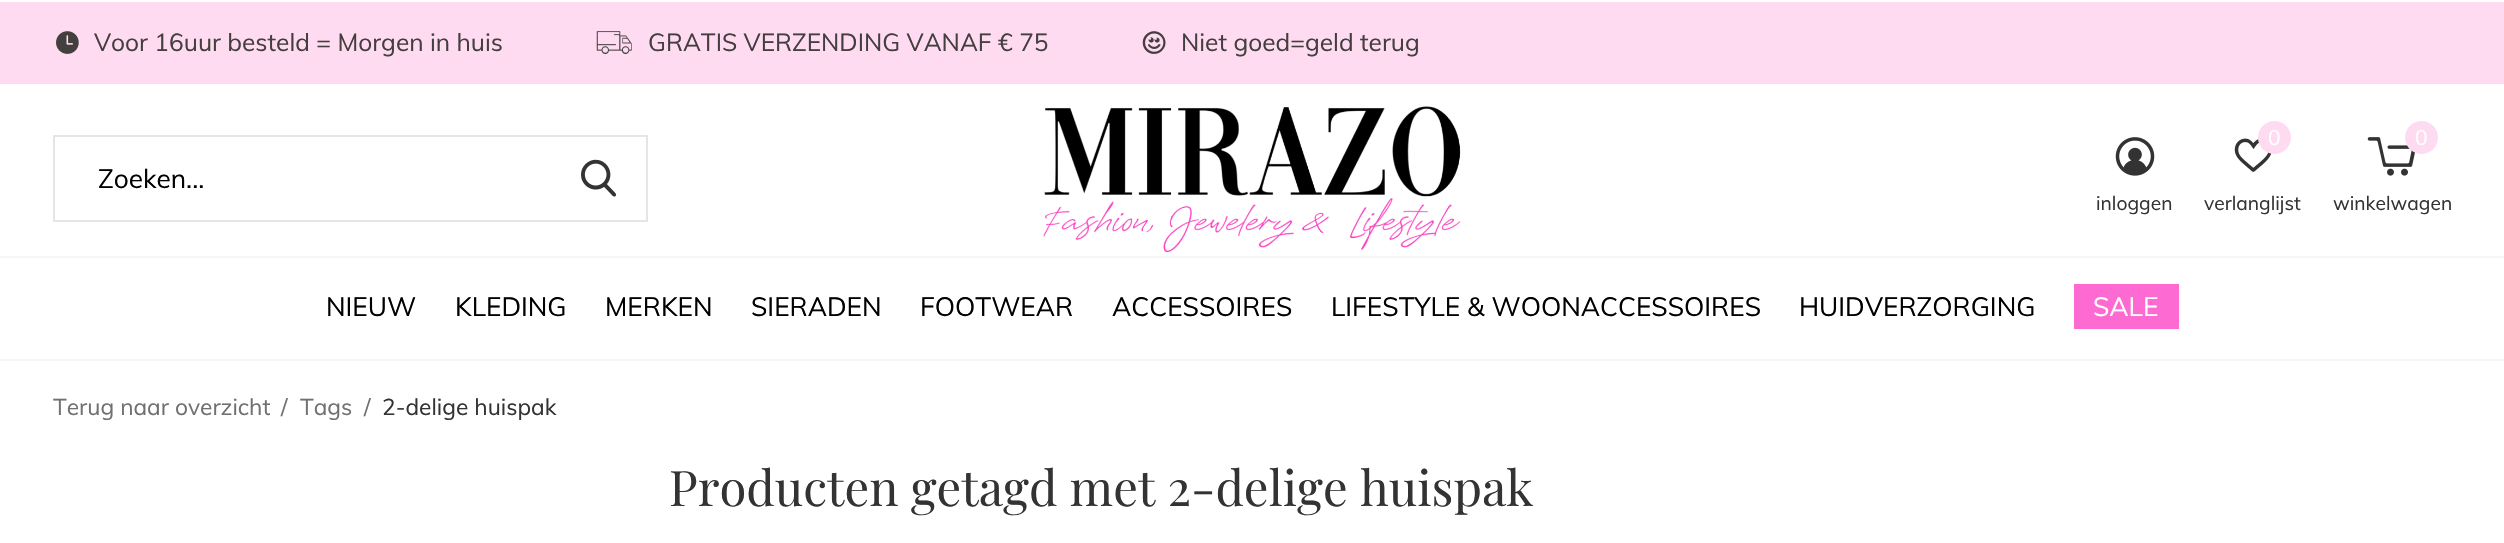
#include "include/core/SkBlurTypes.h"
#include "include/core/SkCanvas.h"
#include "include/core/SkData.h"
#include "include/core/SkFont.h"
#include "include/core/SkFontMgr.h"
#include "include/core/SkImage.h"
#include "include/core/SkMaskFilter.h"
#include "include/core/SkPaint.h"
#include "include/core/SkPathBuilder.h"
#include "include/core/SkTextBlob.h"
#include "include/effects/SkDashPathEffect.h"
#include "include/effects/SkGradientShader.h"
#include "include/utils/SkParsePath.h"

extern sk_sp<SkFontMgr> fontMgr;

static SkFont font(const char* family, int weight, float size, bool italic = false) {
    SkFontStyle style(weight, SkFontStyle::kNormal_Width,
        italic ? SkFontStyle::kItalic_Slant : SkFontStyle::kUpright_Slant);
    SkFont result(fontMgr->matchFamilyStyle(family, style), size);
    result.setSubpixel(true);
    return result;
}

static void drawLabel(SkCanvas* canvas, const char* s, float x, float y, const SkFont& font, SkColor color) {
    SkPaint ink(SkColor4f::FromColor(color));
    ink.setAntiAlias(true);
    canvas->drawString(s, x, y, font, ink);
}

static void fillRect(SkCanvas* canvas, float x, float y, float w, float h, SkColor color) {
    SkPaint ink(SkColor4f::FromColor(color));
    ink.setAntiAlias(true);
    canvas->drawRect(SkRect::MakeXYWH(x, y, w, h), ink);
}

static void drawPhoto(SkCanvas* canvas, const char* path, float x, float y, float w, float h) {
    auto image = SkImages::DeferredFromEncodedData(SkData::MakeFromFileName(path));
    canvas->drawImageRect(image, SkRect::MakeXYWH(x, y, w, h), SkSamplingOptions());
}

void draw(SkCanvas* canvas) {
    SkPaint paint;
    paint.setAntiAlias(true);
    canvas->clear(0xFFFFFFFF);
    fillRect(canvas, 0, 2, 2504, 82, 0xFFFFDBF1);
    drawPhoto(canvas, "assets/img1.png", 56, 31, 23, 23);
    SkFont font1 = font("Muli", 400, 24.5f);
    drawLabel(canvas, "Voor 16uur besteld = Morgen in huis", 94, 51, font1, 0xFF443F3F);
    drawPhoto(canvas, "assets/img2.png", 596, 31, 36, 23);
    drawLabel(canvas, "GRATIS VERZENDING VANAF € 75", 648, 51, font1, 0xFF443F3F);
    drawPhoto(canvas, "assets/img3.png", 1142, 31, 24, 23);
    drawLabel(canvas, "Niet goed=geld terug", 1181, 51, font1, 0xFF443F3F);
    drawPhoto(canvas, "assets/img4.png", 1043, 106, 418, 147);
    paint.setStroke(true);
    paint.setStrokeWidth(2);
    paint.setColor(0xFFE5E5E5);
    canvas->drawRect(SkRect::MakeXYWH(54, 136, 593, 85), paint);
    SkFont font2 = font("Muli", 400, 26.25f);
    drawLabel(canvas, "Zoeken...", 98, 188, font2, 0xFF000000);
    drawPhoto(canvas, "assets/img5.png", 581, 159, 35, 38);
    drawPhoto(canvas, "assets/img6.png", 2115, 137, 40, 39);
    SkFont font3 = font("Muli", 400, 19.25f);
    drawLabel(canvas, "inloggen", 2096, 210, font3, 0xFF333333);
    drawPhoto(canvas, "assets/img7.png", 2234, 138, 38, 34);
    paint.setStroke(false);
    paint.setColor(0xFFFFDBF1);
    canvas->drawCircle(2274.5f, 137.5f, 16.5f, paint);
    SkFont font4 = font("Muli", 400, 21);
    drawLabel(canvas, "0", 2268, 145, font4, 0xFFFFFFFF);
    drawLabel(canvas, "verlanglijst", 2204, 210, font3, 0xFF333333);
    drawPhoto(canvas, "assets/img8.png", 2367, 137, 49, 39);
    canvas->drawCircle(2421.5f, 137.5f, 16.5f, paint);
    drawLabel(canvas, "0", 2415, 145, font4, 0xFFFFFFFF);
    drawLabel(canvas, "winkelwagen", 2333, 210, font3, 0xFF333333);
    fillRect(canvas, 0, 256, 2504, 2, 0xFFF6F6F6);
    fillRect(canvas, 0, 359, 2504, 2, 0xFFF6F6F6);
    drawLabel(canvas, "NIEUW", 326, 316, font2, 0xFF000000);
    drawLabel(canvas, "KLEDING", 455, 316, font2, 0xFF000000);
    drawLabel(canvas, "MERKEN", 605, 316, font2, 0xFF000000);
    drawLabel(canvas, "SIERADEN", 751, 316, font2, 0xFF000000);
    drawLabel(canvas, "FOOTWEAR", 920, 316, font2, 0xFF000000);
    drawLabel(canvas, "ACCESSOIRES", 1112, 316, font2, 0xFF000000);
    drawLabel(canvas, "LIFESTYLE & WOONACCESSOIRES", 1331, 316, font2, 0xFF000000);
    drawLabel(canvas, "HUIDVERZORGING", 1799, 316, font2, 0xFF000000);
    fillRect(canvas, 2074, 284, 105, 45, 0xFFFD6AD1);
    drawLabel(canvas, "SALE", 2093, 316, font2, 0xFFFFFFFF);
    SkFont font5 = font("Muli", 400, 22.75f);
    drawLabel(canvas, "Terug naar overzicht", 53, 415, font5, 0xFF707070);
    drawLabel(canvas, "/", 281, 415, font5, 0xFF707070);
    drawLabel(canvas, "Tags", 300, 415, font5, 0xFF707070);
    drawLabel(canvas, "/", 364, 415, font5, 0xFF707070);
    drawLabel(canvas, "2-delige huispak", 382, 415, font5, 0xFF333333);
    SkFont font6 = font("Playfair Display", 400, 49);
    drawLabel(canvas, "Producten getagd met 2-delige huispak", 669, 506, font6, 0xFF333333);
}
